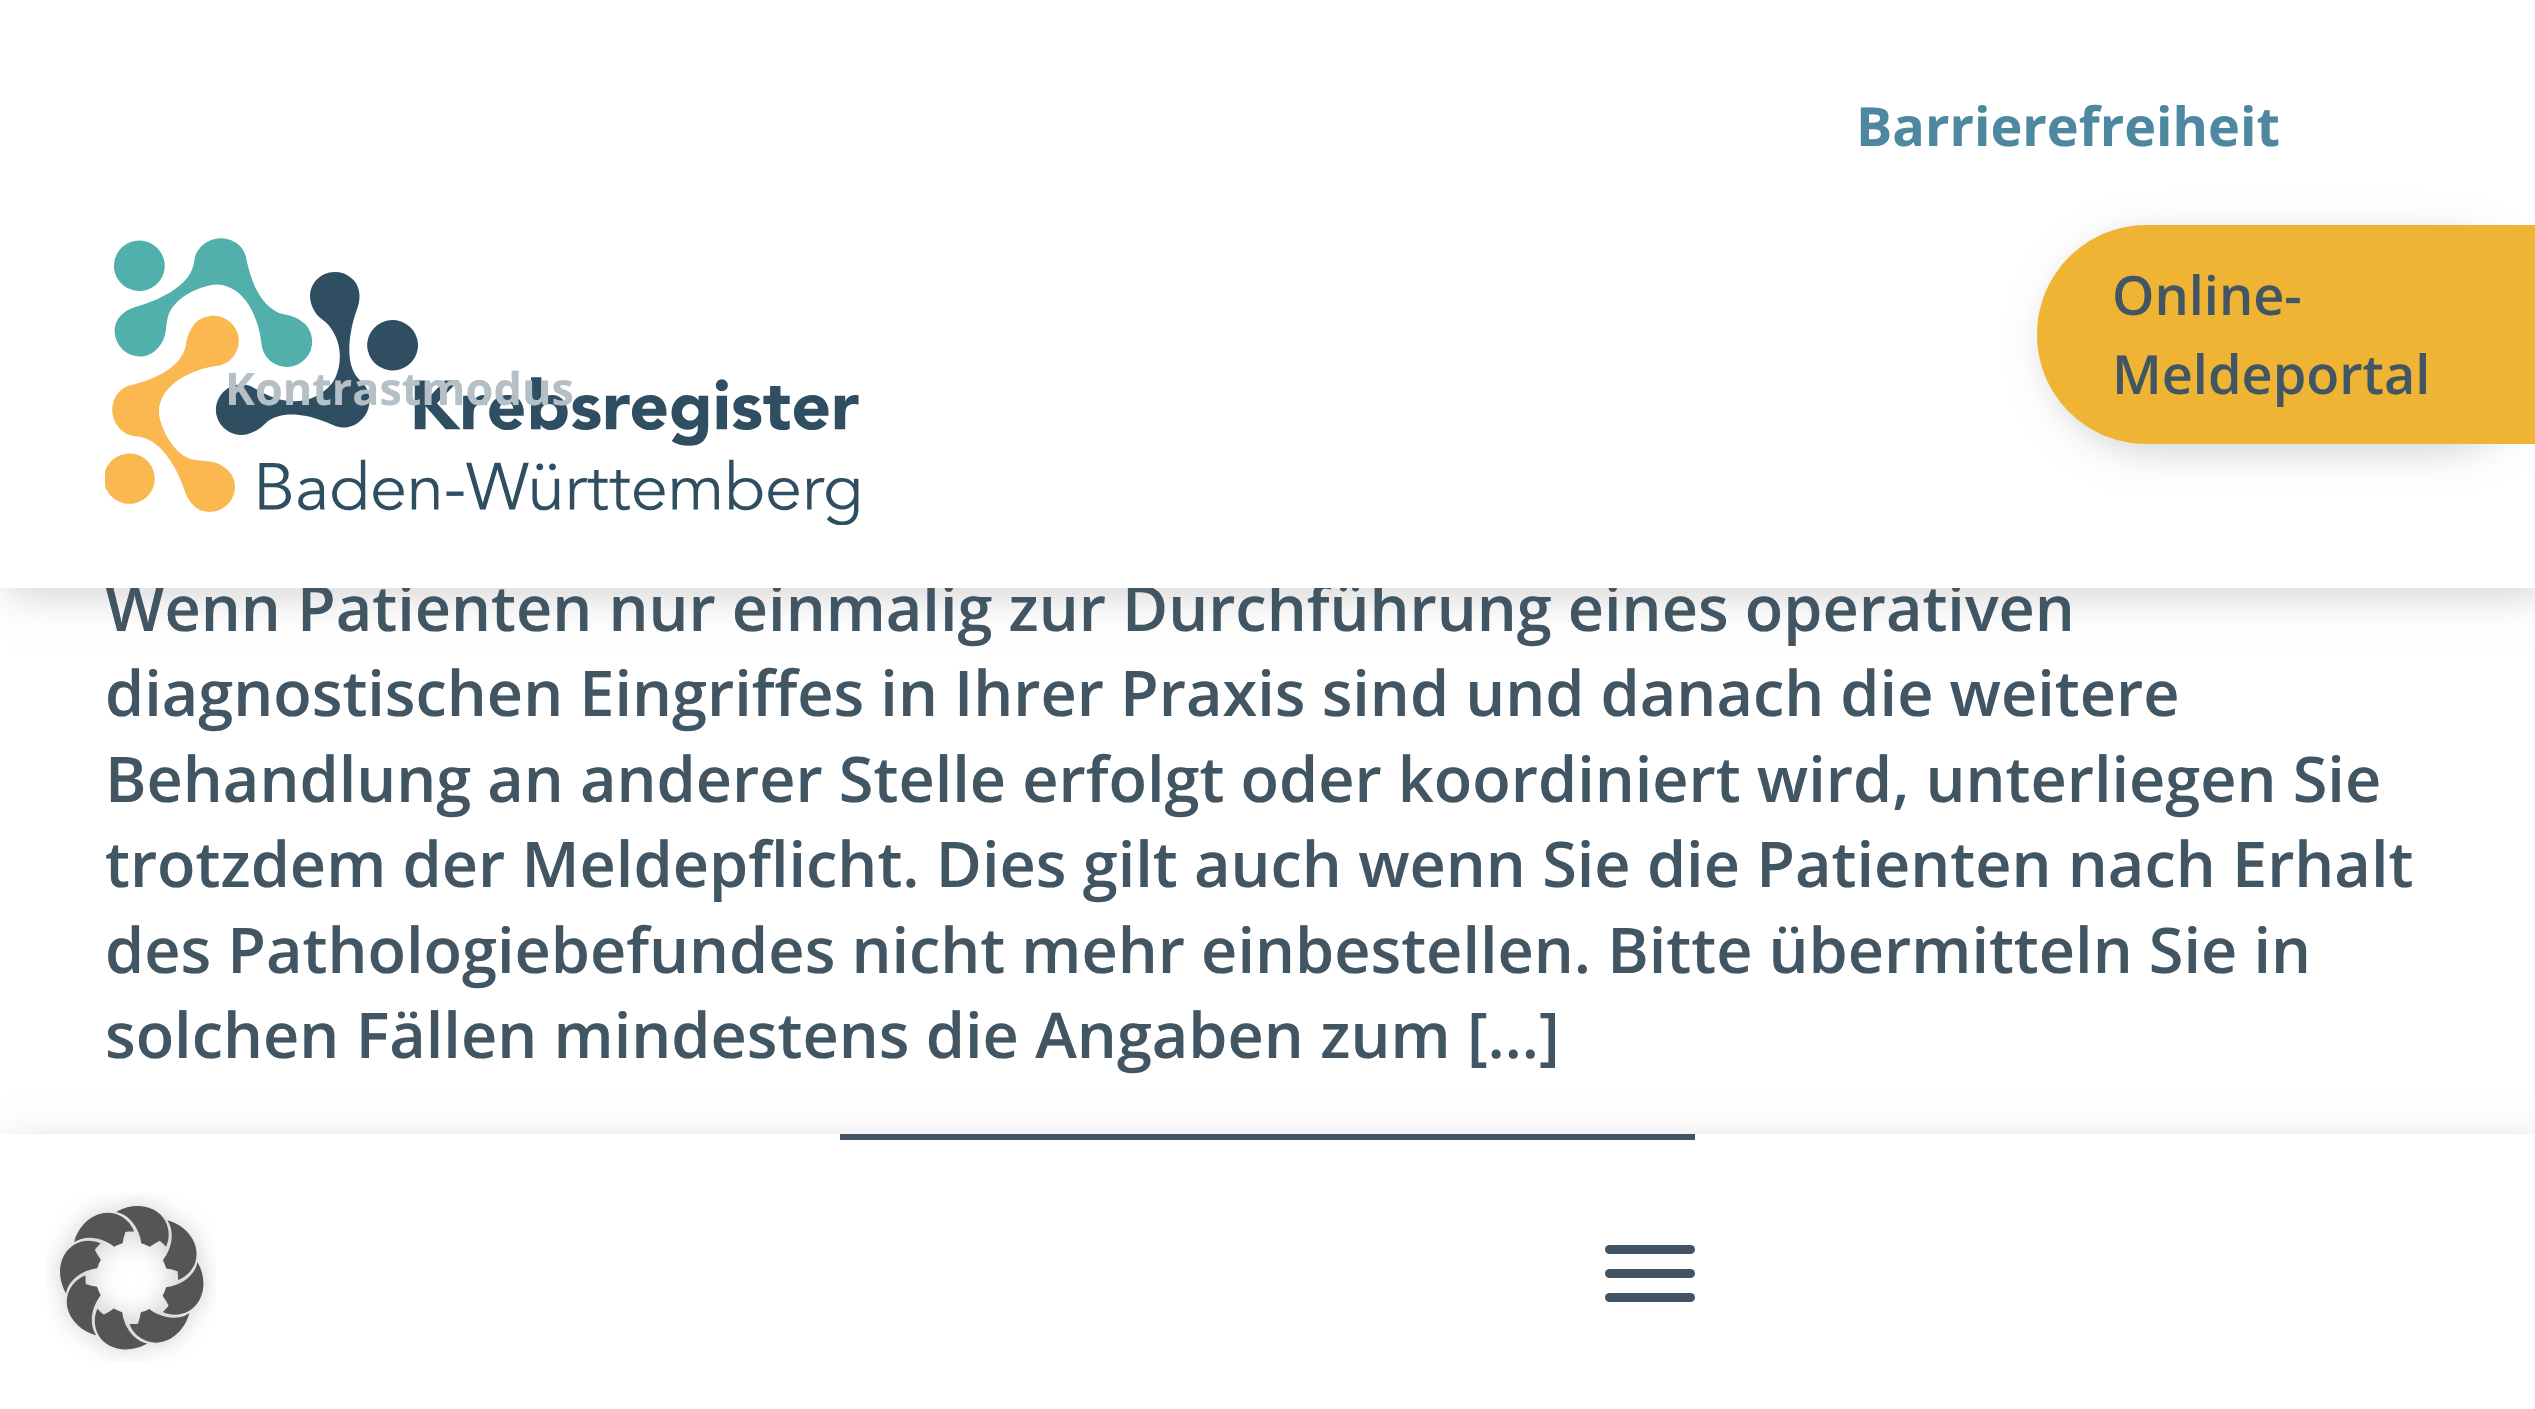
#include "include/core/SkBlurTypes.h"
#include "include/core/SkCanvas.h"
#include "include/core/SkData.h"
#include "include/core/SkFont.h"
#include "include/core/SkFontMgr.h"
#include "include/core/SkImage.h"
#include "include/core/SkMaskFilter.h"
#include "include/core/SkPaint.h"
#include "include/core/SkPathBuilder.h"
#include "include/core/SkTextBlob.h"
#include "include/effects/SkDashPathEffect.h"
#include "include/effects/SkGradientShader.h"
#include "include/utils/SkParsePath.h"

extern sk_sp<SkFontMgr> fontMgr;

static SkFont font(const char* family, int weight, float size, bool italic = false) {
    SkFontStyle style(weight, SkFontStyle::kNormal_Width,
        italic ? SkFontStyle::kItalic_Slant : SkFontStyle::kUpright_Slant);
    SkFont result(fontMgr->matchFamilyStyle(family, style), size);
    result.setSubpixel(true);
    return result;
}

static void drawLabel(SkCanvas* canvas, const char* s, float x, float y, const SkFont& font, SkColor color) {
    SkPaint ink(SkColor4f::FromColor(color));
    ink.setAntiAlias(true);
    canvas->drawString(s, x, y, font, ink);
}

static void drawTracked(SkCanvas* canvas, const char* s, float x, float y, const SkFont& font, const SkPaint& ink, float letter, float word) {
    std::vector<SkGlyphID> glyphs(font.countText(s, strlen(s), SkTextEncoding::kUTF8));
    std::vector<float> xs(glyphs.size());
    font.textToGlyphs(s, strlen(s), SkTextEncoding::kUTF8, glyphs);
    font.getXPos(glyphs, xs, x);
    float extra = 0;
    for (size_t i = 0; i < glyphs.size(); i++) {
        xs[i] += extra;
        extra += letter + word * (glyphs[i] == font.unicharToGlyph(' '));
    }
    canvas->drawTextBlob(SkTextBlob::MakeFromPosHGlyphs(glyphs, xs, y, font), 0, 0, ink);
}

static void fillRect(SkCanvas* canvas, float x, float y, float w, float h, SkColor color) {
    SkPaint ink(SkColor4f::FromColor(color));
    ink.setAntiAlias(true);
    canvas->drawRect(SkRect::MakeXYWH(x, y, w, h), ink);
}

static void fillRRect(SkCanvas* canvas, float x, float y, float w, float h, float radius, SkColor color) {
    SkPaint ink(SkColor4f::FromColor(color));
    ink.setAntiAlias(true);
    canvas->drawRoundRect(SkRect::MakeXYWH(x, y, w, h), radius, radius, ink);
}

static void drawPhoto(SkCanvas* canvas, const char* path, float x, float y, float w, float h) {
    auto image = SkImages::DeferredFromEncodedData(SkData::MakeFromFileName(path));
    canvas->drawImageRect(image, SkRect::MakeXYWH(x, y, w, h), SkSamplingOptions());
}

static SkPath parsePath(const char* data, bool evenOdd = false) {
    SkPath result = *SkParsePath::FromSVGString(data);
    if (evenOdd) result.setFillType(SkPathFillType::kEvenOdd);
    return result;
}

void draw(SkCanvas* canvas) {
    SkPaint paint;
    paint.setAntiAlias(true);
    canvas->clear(0xFFFFFFFF);
    paint.setColor(0x29000000);
    paint.setMaskFilter(SkMaskFilter::MakeBlur(kNormal_SkBlurStyle, 18));
    canvas->drawRect(SkRect::MakeXYWH(9, 9, 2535, 588), paint);
    paint.setMaskFilter(nullptr);
    SkFont font1 = font("Open Sans", 600, 63);
    paint.setColor(0xFF425563);
    drawTracked(canvas, "Wenn Patienten nur einmalig zur Durchführung eines operativen", 105, 631, font1, paint, 0, -0.25f);
    fillRect(canvas, 0, 0, 2535, 588, 0xFFFFFFFF);
    SkFont font2 = font("Open Sans", 700, 54);
    drawLabel(canvas, "Barrierefreiheit", 1856, 146, font2, 0xFF4E87A0);
    drawPhoto(canvas, "assets/img1.png", 105, 238, 754, 287);
    SkFont font3 = font("Open Sans", 700, 45);
    drawLabel(canvas, "Kontrastmodus", 225, 405, font3, 0xFFB4BFC6);
    paint.setColor(0x29000000);
    paint.setMaskFilter(SkMaskFilter::MakeBlur(kNormal_SkBlurStyle, 18));
    canvas->drawRoundRect(SkRect::MakeXYWH(2046, 234, 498, 219), 109.5f, 109.5f, paint);
    paint.setMaskFilter(nullptr);
    paint.setColor(0xFFF0B434);
    canvas->drawPath(parsePath("M2146.5 225H2535V444H2146.5C2086 444 2037 395 2037 334.5C2037 274 2086 225 2146.5 225Z"), paint);
    SkFont font4 = font("Open Sans", 600, 54);
    drawLabel(canvas, "Online-", 2112, 315, font4, 0xFF425563);
    drawLabel(canvas, "Meldeportal", 2112, 394, font4, 0xFF425563);
    paint.setColor(0xFF425563);
    drawTracked(canvas, "diagnostischen Eingriffes in Ihrer Praxis sind und danach die weitere", 105, 716, font1, paint, 0, -0.25f);
    drawTracked(canvas, "Behandlung an anderer Stelle erfolgt oder koordiniert wird, unterliegen Sie", 105, 802, font1, paint, 0, -0.25f);
    drawTracked(canvas, "trotzdem der Meldepflicht. Dies gilt auch wenn Sie die Patienten nach Erhalt", 105, 887, font1, paint, 0, -0.1f);
    drawTracked(canvas, "des Pathologiebefundes nicht mehr einbestellen. Bitte übermitteln Sie in", 105, 973, font1, paint, 0, -0.25f);
    drawLabel(canvas, "solchen Fällen mindestens die Angaben zum […]", 105, 1058, font1, 0xFF425563);
    paint.setColor(0x29000000);
    paint.setMaskFilter(SkMaskFilter::MakeBlur(kNormal_SkBlurStyle, 18));
    canvas->drawRect(SkRect::MakeXYWH(9, 1143, 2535, 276), paint);
    paint.setMaskFilter(nullptr);
    fillRect(canvas, 0, 1134, 2535, 275, 0xFFFFFFFF);
    fillRect(canvas, 840, 1134, 855, 6, 0xFF425463);
    fillRRect(canvas, 1605, 1245, 90, 9, 4.5f, 0xFF425463);
    fillRRect(canvas, 1605, 1269, 90, 9, 4.5f, 0xFF425463);
    fillRRect(canvas, 1605, 1293, 90, 9, 4.5f, 0xFF425463);
    drawPhoto(canvas, "assets/img2.png", 47, 1193, 169, 169);
}
